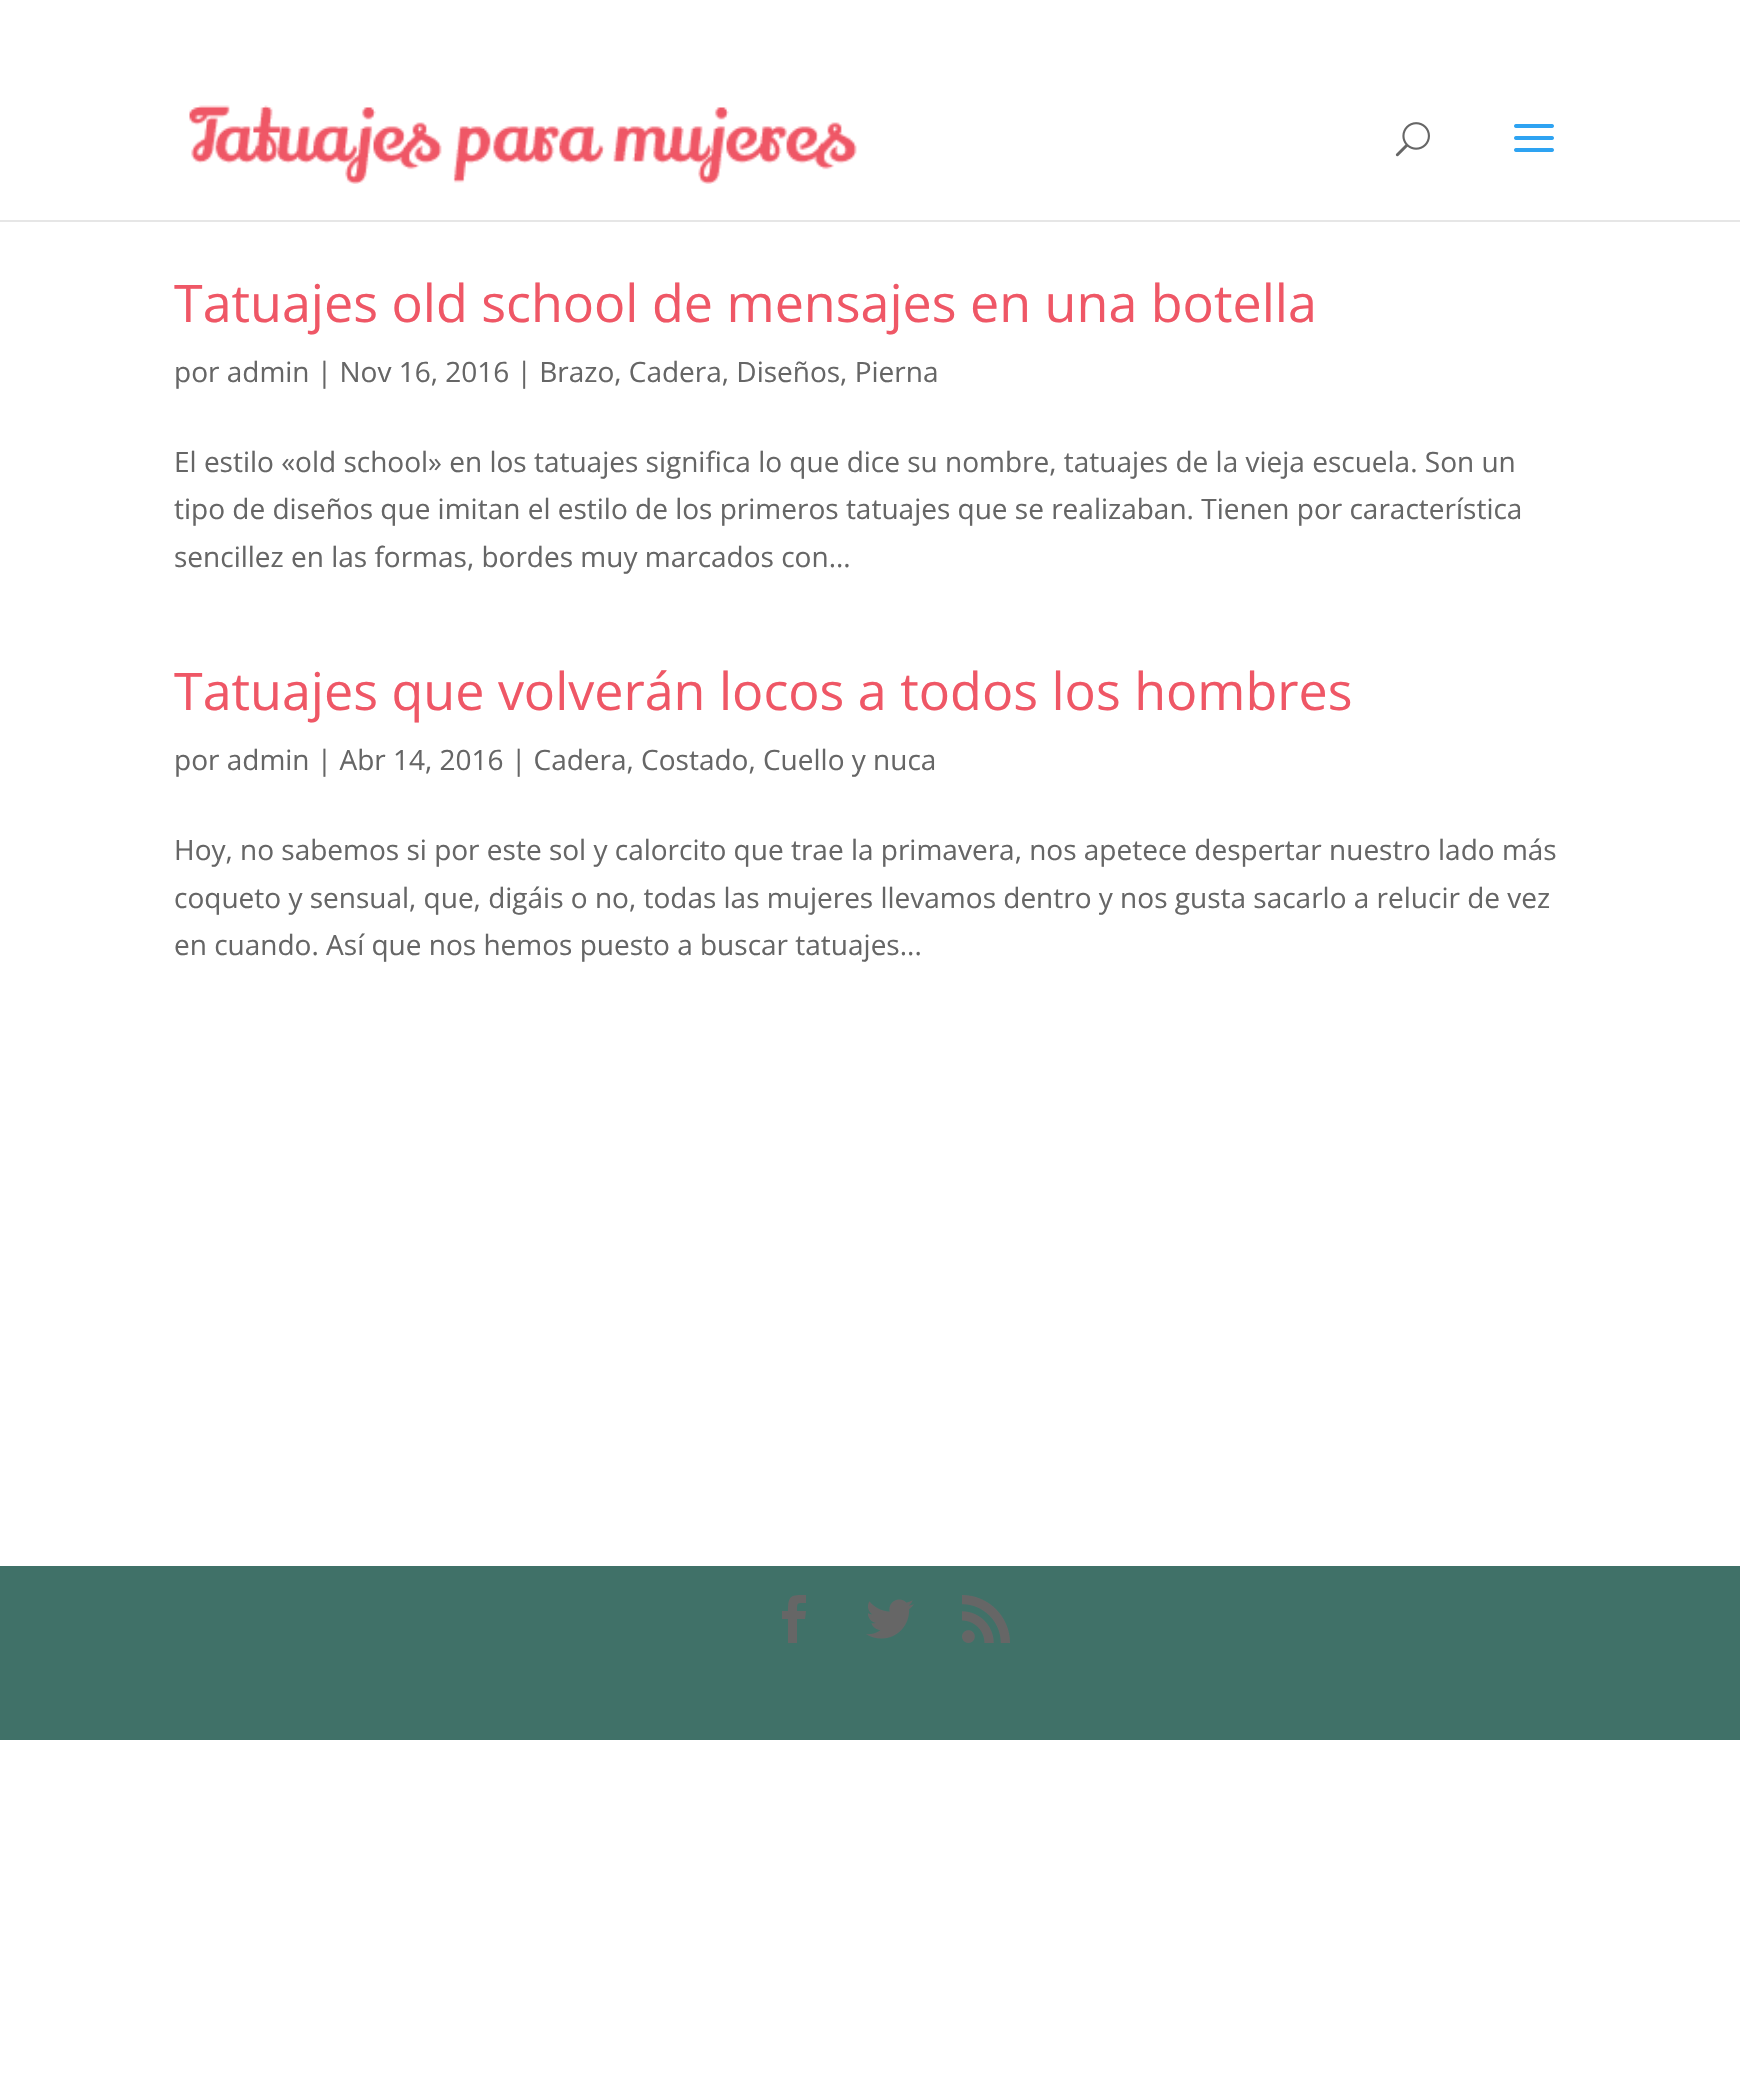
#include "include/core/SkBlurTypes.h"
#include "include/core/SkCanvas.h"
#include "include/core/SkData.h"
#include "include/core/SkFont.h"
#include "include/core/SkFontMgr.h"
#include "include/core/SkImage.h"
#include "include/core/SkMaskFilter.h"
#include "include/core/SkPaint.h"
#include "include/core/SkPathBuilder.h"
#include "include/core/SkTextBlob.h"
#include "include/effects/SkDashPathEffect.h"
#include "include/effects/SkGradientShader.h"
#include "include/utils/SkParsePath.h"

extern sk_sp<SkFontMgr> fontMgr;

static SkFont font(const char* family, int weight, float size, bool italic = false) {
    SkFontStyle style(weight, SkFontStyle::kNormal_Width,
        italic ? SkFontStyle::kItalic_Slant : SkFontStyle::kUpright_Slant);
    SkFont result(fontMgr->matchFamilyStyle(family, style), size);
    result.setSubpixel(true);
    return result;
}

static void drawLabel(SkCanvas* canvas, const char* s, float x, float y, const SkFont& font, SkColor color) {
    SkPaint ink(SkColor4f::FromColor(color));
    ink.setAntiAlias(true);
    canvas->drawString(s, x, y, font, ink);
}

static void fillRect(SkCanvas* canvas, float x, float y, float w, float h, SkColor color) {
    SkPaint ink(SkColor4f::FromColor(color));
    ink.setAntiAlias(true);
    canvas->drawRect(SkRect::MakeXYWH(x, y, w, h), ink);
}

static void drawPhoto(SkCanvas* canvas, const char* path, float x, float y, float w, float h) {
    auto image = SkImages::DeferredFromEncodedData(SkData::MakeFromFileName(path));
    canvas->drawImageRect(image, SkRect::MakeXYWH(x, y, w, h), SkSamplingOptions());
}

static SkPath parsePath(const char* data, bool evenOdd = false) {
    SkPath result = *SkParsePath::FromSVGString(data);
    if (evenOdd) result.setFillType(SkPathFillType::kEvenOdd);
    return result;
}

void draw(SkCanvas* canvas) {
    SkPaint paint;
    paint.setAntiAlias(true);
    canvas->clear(0xFFFFFFFF);
    fillRect(canvas, 0, 220, 1740, 2, 0xFFE6E6E6);
    drawPhoto(canvas, "assets/img1.png", 189, 105, 668, 79);
    drawPhoto(canvas, "assets/img2.png", 1395, 122, 35, 35);
    drawPhoto(canvas, "assets/img3.png", 1514, 124, 40, 28);
    SkFont font1 = font("Open Sans", 400, 52);
    drawLabel(canvas, "Tatuajes old school de mensajes en una botella", 174, 322, font1, 0xFFEF5766);
    SkFont font2 = font("Open Sans", 400, 28);
    drawLabel(canvas, "por admin | Nov 16, 2016 | Brazo, Cadera, Diseños, Pierna", 174, 382, font2, 0xFF666666);
    drawLabel(canvas, "El estilo «old school» en los tatuajes significa lo que dice su nombre, tatuajes de la vieja escuela. Son un", 174, 472, font2, 0xFF666666);
    drawLabel(canvas, "tipo de diseños que imitan el estilo de los primeros tatuajes que se realizaban. Tienen por característica", 174, 519, font2, 0xFF666666);
    drawLabel(canvas, "sencillez en las formas, bordes muy marcados con...", 174, 567, font2, 0xFF666666);
    drawLabel(canvas, "Tatuajes que volverán locos a todos los hombres", 174, 710, font1, 0xFFEF5766);
    drawLabel(canvas, "por admin | Abr 14, 2016 | Cadera, Costado, Cuello y nuca", 174, 770, font2, 0xFF666666);
    drawLabel(canvas, "Hoy, no sabemos si por este sol y calorcito que trae la primavera, nos apetece despertar nuestro lado más", 174, 860, font2, 0xFF666666);
    drawLabel(canvas, "coqueto y sensual, que, digáis o no, todas las mujeres llevamos dentro y nos gusta sacarlo a relucir de vez", 174, 908, font2, 0xFF666666);
    drawLabel(canvas, "en cuando. Así que nos hemos puesto a buscar tatuajes...", 174, 955, font2, 0xFF666666);
    fillRect(canvas, 0, 1566, 1740, 174, 0xFF407168);
    paint.setColor(0xFF666666);
    canvas->drawPath(parsePath("M788 1643H797V1619H805L806 1611H797C797 1602 797 1603 806 1603V1595C791 1595 788 1595 788 1611H782V1619H788Z"), paint);
    drawPhoto(canvas, "assets/img4.png", 866, 1599, 48, 40);
    drawPhoto(canvas, "assets/img5.png", 962, 1595, 48, 48);
}
